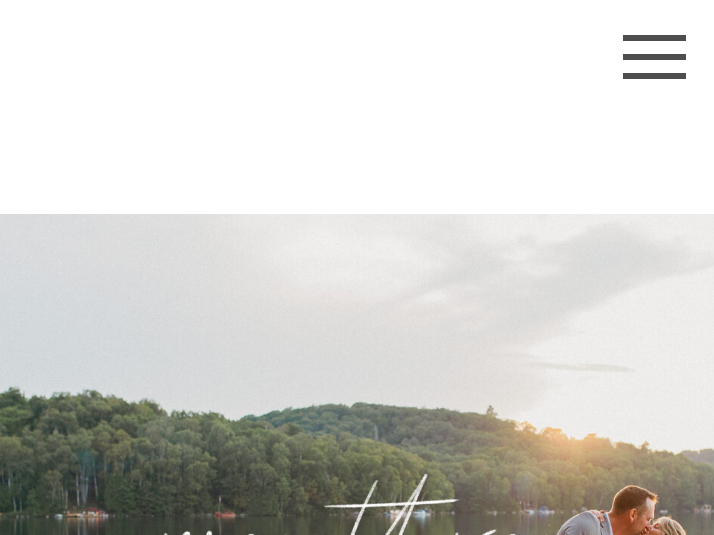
#include "include/core/SkBlurTypes.h"
#include "include/core/SkCanvas.h"
#include "include/core/SkData.h"
#include "include/core/SkFont.h"
#include "include/core/SkFontMgr.h"
#include "include/core/SkImage.h"
#include "include/core/SkMaskFilter.h"
#include "include/core/SkPaint.h"
#include "include/core/SkPathBuilder.h"
#include "include/core/SkTextBlob.h"
#include "include/effects/SkDashPathEffect.h"
#include "include/effects/SkGradientShader.h"
#include "include/utils/SkParsePath.h"

extern sk_sp<SkFontMgr> fontMgr;

static void drawPhoto(SkCanvas* canvas, const char* path, float x, float y, float w, float h) {
    auto image = SkImages::DeferredFromEncodedData(SkData::MakeFromFileName(path));
    canvas->drawImageRect(image, SkRect::MakeXYWH(x, y, w, h), SkSamplingOptions());
}

static SkPath parsePath(const char* data, bool evenOdd = false) {
    SkPath result = *SkParsePath::FromSVGString(data);
    if (evenOdd) result.setFillType(SkPathFillType::kEvenOdd);
    return result;
}

void draw(SkCanvas* canvas) {
    SkPaint paint;
    paint.setAntiAlias(true);
    canvas->clear(0xFFFFFFFF);
    paint.setColor(0xFF4E4E4E);
    canvas->drawPath(parsePath("M623 54H686V60H623ZM623 35H686V41H623ZM623 73H686V79H623Z"), paint);
    drawPhoto(canvas, "assets/img1.png", 0, 214, 714, 321);
    drawPhoto(canvas, "assets/img2.png", 163, 473, 385, 62);
}
